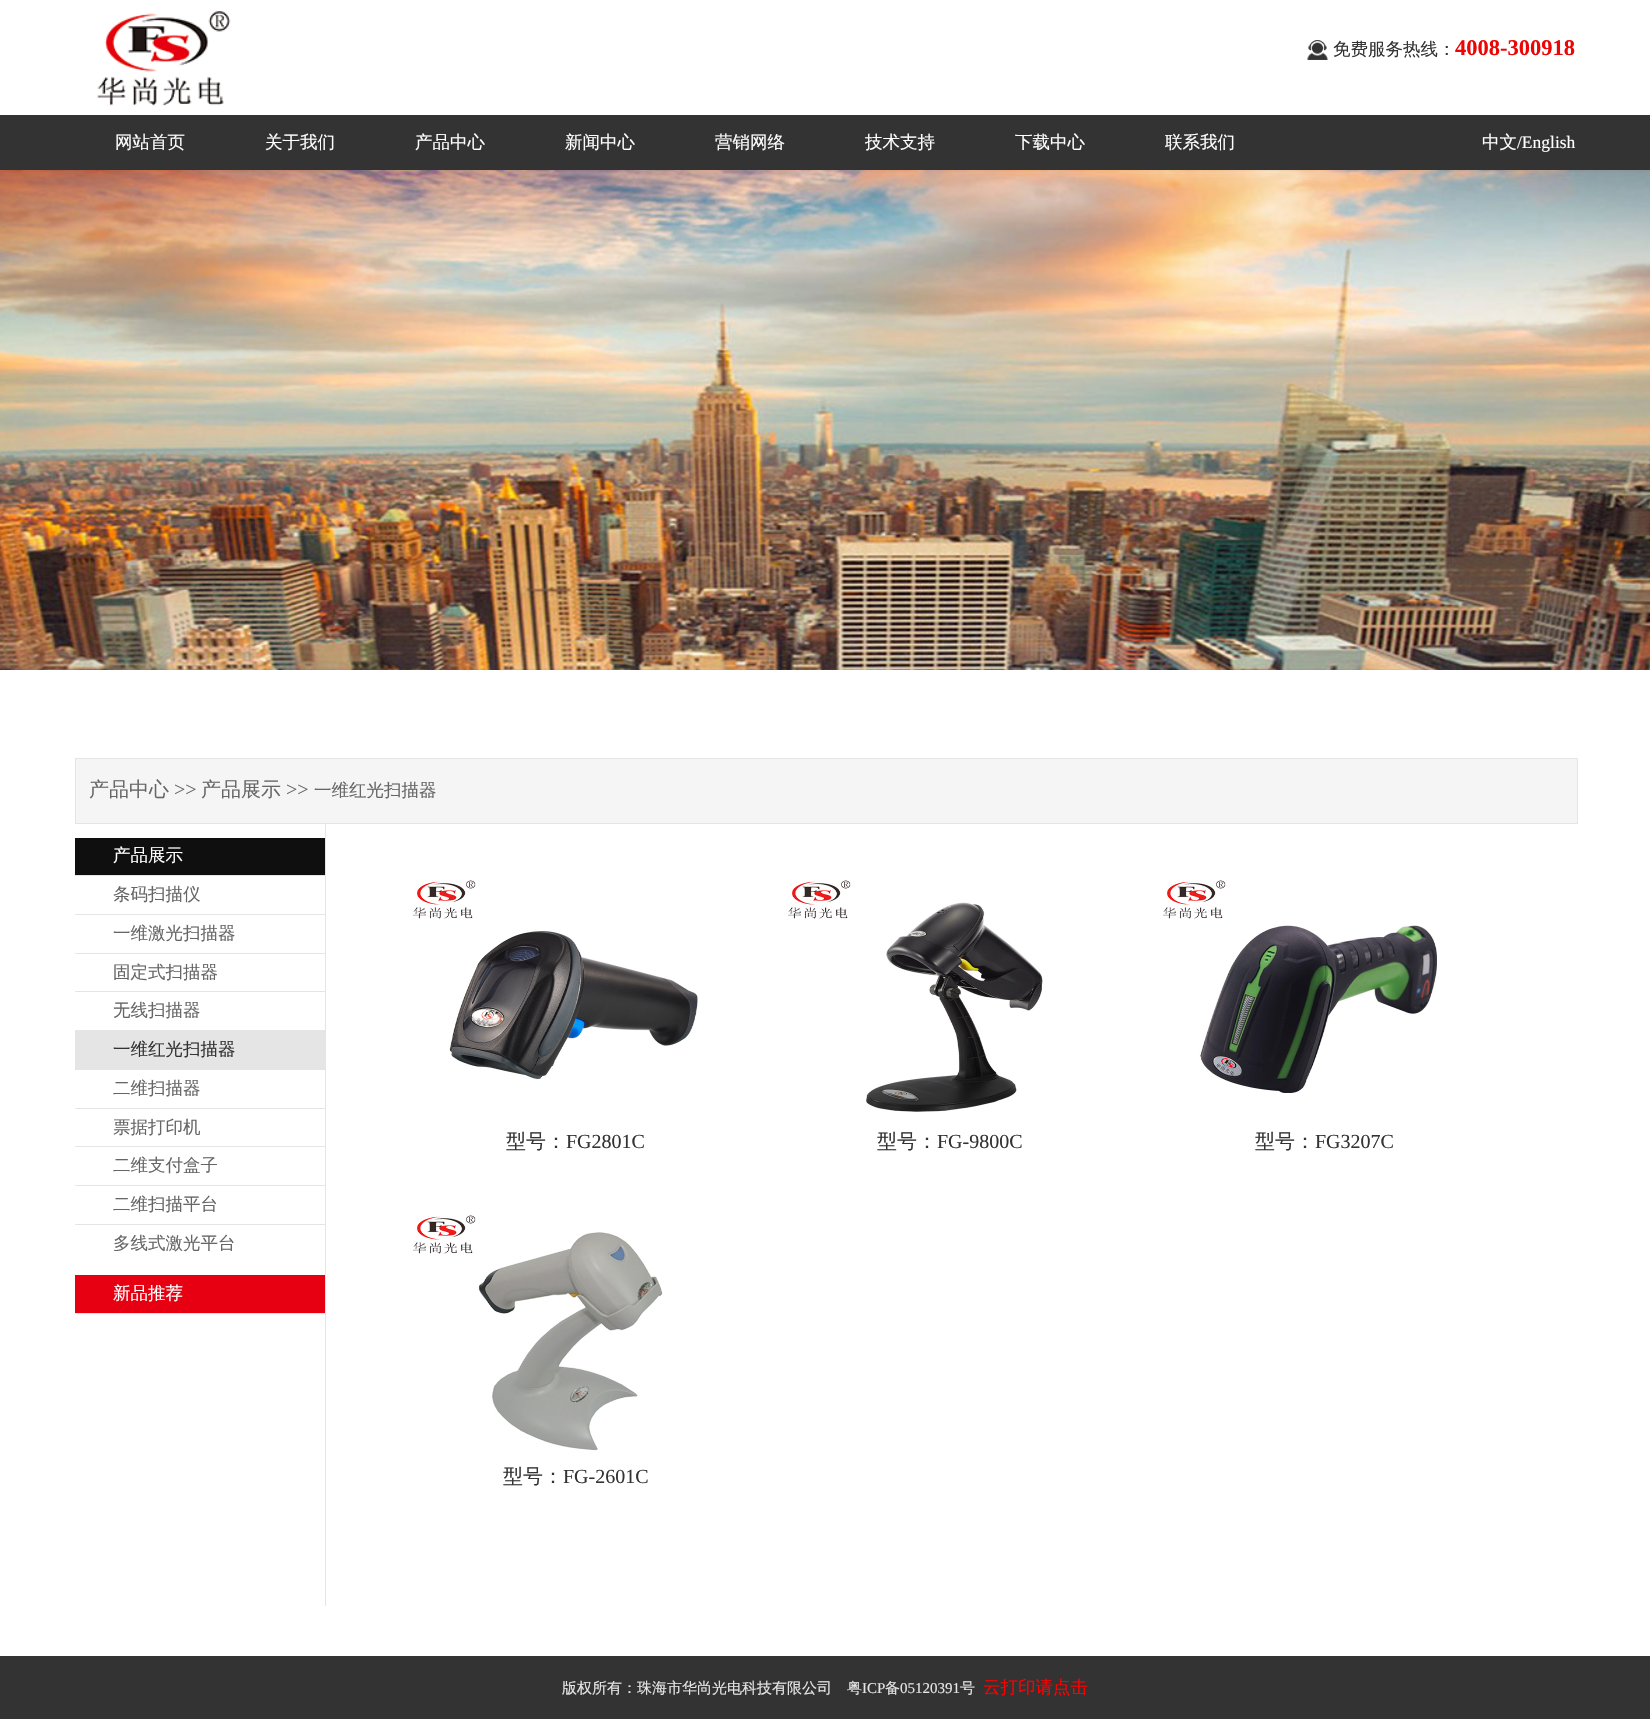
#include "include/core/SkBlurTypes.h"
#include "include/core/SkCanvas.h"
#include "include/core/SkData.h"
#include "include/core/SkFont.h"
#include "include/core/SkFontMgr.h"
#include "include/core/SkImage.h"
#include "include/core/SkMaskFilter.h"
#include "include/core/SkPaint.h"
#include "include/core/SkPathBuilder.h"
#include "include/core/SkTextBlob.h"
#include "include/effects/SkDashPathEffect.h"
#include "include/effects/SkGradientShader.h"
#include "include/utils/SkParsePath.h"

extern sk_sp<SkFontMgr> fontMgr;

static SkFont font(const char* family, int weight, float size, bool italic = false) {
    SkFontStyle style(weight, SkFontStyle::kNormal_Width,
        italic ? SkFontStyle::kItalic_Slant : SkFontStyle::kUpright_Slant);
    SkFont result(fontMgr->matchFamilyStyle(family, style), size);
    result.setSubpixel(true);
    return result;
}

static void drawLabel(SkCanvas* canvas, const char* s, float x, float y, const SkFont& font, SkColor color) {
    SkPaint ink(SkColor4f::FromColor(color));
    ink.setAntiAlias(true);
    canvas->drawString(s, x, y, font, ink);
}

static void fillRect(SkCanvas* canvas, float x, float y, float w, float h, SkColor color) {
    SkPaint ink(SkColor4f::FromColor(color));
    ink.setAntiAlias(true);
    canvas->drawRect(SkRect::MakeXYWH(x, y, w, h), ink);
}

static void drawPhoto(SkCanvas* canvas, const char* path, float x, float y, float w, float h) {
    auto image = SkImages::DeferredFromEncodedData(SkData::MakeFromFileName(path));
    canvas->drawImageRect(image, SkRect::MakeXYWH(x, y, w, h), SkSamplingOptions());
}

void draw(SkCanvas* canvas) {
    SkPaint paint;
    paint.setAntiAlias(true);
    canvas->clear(0xFFFFFFFF);
    drawPhoto(canvas, "assets/img1.png", 97, 11, 134, 95);
    drawPhoto(canvas, "assets/img2.png", 1307, 40, 21, 20);
    SkFont font1 = font("WenQuanYi Zen Hei", 500, 17.5f);
    drawLabel(canvas, "免费服务热线：", 1333, 55, font1, 0xFF333333);
    SkFont font2 = font("Liberation Serif", 700, 22.5f);
    drawLabel(canvas, "4008-300918", 1455, 55, font2, 0xFFEC0505);
    fillRect(canvas, 0, 115, 1650, 55, 0xFF333333);
    drawLabel(canvas, "网站首页", 115, 148, font1, 0xFFFFFFFF);
    drawLabel(canvas, "关于我们", 265, 148, font1, 0xFFFFFFFF);
    drawLabel(canvas, "产品中心", 415, 148, font1, 0xFFFFFFFF);
    drawLabel(canvas, "新闻中心", 565, 148, font1, 0xFFFFFFFF);
    drawLabel(canvas, "营销网络", 715, 148, font1, 0xFFFFFFFF);
    drawLabel(canvas, "技术支持", 865, 148, font1, 0xFFFFFFFF);
    drawLabel(canvas, "下载中心", 1015, 148, font1, 0xFFFFFFFF);
    drawLabel(canvas, "联系我们", 1165, 148, font1, 0xFFFFFFFF);
    drawLabel(canvas, "中文", 1482, 148, font1, 0xFFFFFFFF);
    SkFont font3 = font("Liberation Serif", 400, 17.5f);
    drawLabel(canvas, "/English", 1517, 148, font3, 0xFFFFFFFF);
    drawPhoto(canvas, "assets/img3.png", 0, 170, 1650, 500);
    paint.setColor(0xFFF5F5F5);
    canvas->drawRect(SkRect::MakeXYWH(75.5f, 758.5f, 1502, 65), paint);
    paint.setStroke(true);
    paint.setStrokeWidth(1);
    paint.setColor(0xFFE5E5E5);
    canvas->drawRect(SkRect::MakeXYWH(75.5f, 758.5f, 1502, 65), paint);
    SkFont font4 = font("WenQuanYi Zen Hei", 500, 20);
    drawLabel(canvas, "产品中心", 89, 796, font4, 0xFF666666);
    SkFont font5 = font("Liberation Serif", 400, 20);
    drawLabel(canvas, ">>", 174, 796, font5, 0xFF666666);
    drawLabel(canvas, "产品展示", 201, 796, font4, 0xFF666666);
    drawLabel(canvas, ">>", 286, 796, font5, 0xFF666666);
    drawLabel(canvas, "一维红光扫描器", 314, 796, font1, 0xFF666666);
    fillRect(canvas, 75, 1313, 250, 1, 0xFFE5E5E5);
    fillRect(canvas, 75, 838, 250, 37, 0xFF0F0F0F);
    drawLabel(canvas, "产品展示", 113, 861, font1, 0xFFFFFFFF);
    fillRect(canvas, 75, 875, 250, 1, 0xFFE5E5E5);
    drawLabel(canvas, "条码扫描仪", 113, 900, font1, 0xFF666666);
    fillRect(canvas, 75, 914, 250, 1, 0xFFE5E5E5);
    drawLabel(canvas, "一维激光扫描器", 113, 939, font1, 0xFF666666);
    fillRect(canvas, 75, 953, 250, 1, 0xFFE5E5E5);
    drawLabel(canvas, "固定式扫描器", 113, 978, font1, 0xFF666666);
    fillRect(canvas, 75, 991, 250, 1, 0xFFE5E5E5);
    drawLabel(canvas, "无线扫描器", 113, 1016, font1, 0xFF666666);
    fillRect(canvas, 75, 1030, 250, 40, 0xFFE5E5E5);
    drawLabel(canvas, "一维红光扫描器", 113, 1055, font1, 0xFF333333);
    drawLabel(canvas, "二维扫描器", 113, 1094, font1, 0xFF666666);
    fillRect(canvas, 75, 1108, 250, 1, 0xFFE5E5E5);
    drawLabel(canvas, "票据打印机", 113, 1133, font1, 0xFF666666);
    fillRect(canvas, 75, 1146, 250, 1, 0xFFE5E5E5);
    drawLabel(canvas, "二维支付盒子", 113, 1171, font1, 0xFF666666);
    fillRect(canvas, 75, 1185, 250, 1, 0xFFE5E5E5);
    drawLabel(canvas, "二维扫描平台", 113, 1210, font1, 0xFF666666);
    fillRect(canvas, 75, 1224, 250, 1, 0xFFE5E5E5);
    drawLabel(canvas, "多线式激光平台", 113, 1249, font1, 0xFF666666);
    fillRect(canvas, 75, 1275, 250, 38, 0xFFE60012);
    drawLabel(canvas, "新品推荐", 113, 1299, font1, 0xFFFFFFFF);
    fillRect(canvas, 325, 824, 1, 782, 0xFFE5E5E5);
    drawPhoto(canvas, "assets/img4.png", 413, 880, 285, 199);
    drawLabel(canvas, "型号：", 506, 1148, font4, 0xFF333333);
    drawLabel(canvas, "FG2801C", 566, 1148, font5, 0xFF333333);
    drawPhoto(canvas, "assets/img5.png", 788, 880, 255, 232);
    drawLabel(canvas, "型号：", 877, 1148, font4, 0xFF333333);
    drawLabel(canvas, "FG-9800C", 937, 1148, font5, 0xFF333333);
    drawPhoto(canvas, "assets/img6.png", 1163, 880, 274, 213);
    drawLabel(canvas, "型号：", 1255, 1148, font4, 0xFF333333);
    drawLabel(canvas, "FG3207C", 1315, 1148, font5, 0xFF333333);
    drawPhoto(canvas, "assets/img7.png", 413, 1215, 250, 236);
    drawLabel(canvas, "型号：", 503, 1483, font4, 0xFF333333);
    drawLabel(canvas, "FG-2601C", 563, 1483, font5, 0xFF333333);
    fillRect(canvas, 0, 1656, 1650, 63, 0xFF333333);
    SkFont font6 = font("WenQuanYi Zen Hei", 500, 15);
    drawLabel(canvas, "版权所有：珠海市华尚光电科技有限公司　粤", 562, 1693, font6, 0xFFE5E5E5);
    SkFont font7 = font("Liberation Serif", 400, 15);
    drawLabel(canvas, "ICP", 862, 1693, font7, 0xFFE5E5E5);
    drawLabel(canvas, "备", 885, 1693, font6, 0xFFE5E5E5);
    drawLabel(canvas, "05120391", 900, 1693, font7, 0xFFE5E5E5);
    drawLabel(canvas, "号", 960, 1693, font6, 0xFFE5E5E5);
    drawLabel(canvas, "云打印请点击", 983, 1693, font1, 0xFFFF0000);
}
